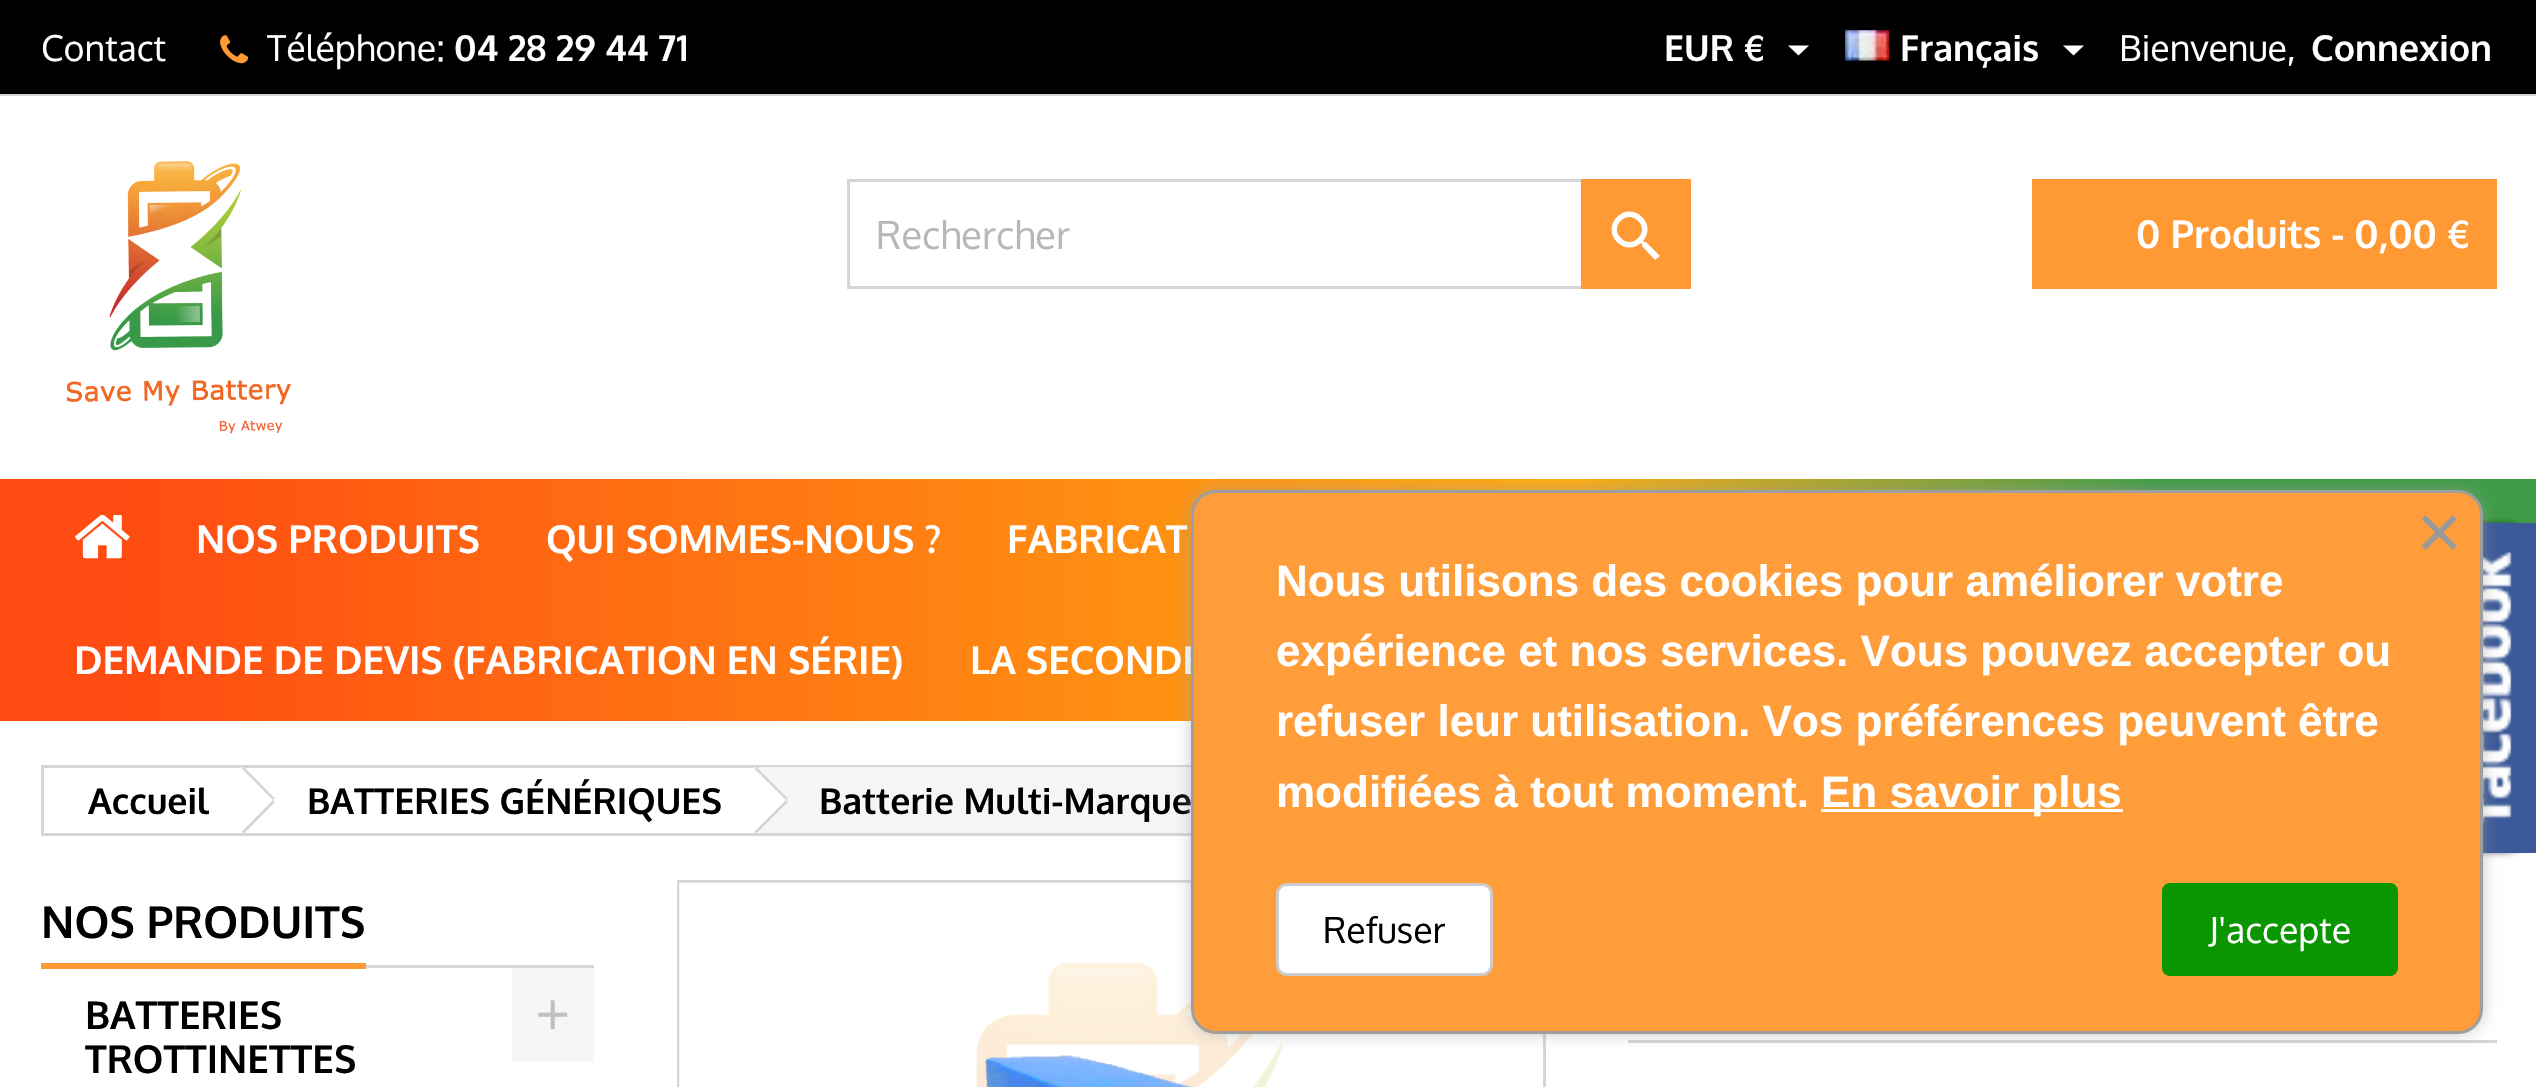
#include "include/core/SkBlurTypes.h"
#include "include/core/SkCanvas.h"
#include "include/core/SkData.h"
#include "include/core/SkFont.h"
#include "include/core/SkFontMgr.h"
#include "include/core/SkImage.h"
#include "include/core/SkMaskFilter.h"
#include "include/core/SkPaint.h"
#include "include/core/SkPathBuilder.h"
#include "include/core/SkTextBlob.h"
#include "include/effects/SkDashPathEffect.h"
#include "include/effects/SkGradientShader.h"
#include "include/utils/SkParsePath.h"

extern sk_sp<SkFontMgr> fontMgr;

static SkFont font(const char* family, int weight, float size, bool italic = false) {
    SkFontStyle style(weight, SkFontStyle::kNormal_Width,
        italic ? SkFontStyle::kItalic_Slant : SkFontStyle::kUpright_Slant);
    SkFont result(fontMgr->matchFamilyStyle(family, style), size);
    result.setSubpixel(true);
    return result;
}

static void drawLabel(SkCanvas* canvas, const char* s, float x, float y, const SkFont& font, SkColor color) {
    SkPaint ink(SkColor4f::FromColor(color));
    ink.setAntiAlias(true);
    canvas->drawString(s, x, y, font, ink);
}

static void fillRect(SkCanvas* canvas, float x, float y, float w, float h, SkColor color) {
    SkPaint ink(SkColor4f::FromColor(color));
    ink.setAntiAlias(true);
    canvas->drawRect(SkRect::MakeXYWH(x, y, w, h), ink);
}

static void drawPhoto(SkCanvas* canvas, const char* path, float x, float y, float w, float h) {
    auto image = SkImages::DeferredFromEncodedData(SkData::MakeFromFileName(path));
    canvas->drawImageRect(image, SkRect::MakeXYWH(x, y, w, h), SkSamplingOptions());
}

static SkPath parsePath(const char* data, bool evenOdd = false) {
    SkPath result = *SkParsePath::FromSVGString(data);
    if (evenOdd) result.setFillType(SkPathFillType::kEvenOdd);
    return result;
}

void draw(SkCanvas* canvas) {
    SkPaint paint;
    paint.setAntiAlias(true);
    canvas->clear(0xFFFFFFFF);
    fillRect(canvas, 0, 0, 2536, 94, 0xFF000000);
    fillRect(canvas, 0, 94, 2536, 2, 0xFFD6D4D4);
    SkFont font1 = font("Oxygen", 400, 35.75f);
    drawLabel(canvas, "Contact", 41, 61, font1, 0xFFFFFFFF);
    drawPhoto(canvas, "assets/img1.png", 220, 35, 29, 29);
    drawLabel(canvas, "Téléphone:", 267, 61, font1, 0xFFFFFFFF);
    SkFont font2 = font("Oxygen", 700, 35.75f);
    drawLabel(canvas, "04 28 29 44 71", 454, 61, font2, 0xFFFFFFFF);
    drawLabel(canvas, "EUR €", 1664, 61, font2, 0xFFFFFFFF);
    paint.setColor(0xFFFFFFFF);
    canvas->drawPath(parsePath("M1788 45.5H1809L1798.5 55.5Z"), paint);
    drawPhoto(canvas, "assets/img2.png", 1845, 30, 45, 31);
    drawLabel(canvas, "Français", 1900, 61, font2, 0xFFFFFFFF);
    canvas->drawPath(parsePath("M2063 45.5H2084L2073.5 55.5Z"), paint);
    drawLabel(canvas, "Bienvenue,", 2119, 61, font1, 0xFFFFFFFF);
    drawLabel(canvas, "Connexion", 2311, 61, font2, 0xFFFFFFFF);
    drawPhoto(canvas, "assets/img3.png", 66, 161, 225, 273);
    paint.setStroke(true);
    paint.setStrokeWidth(3);
    paint.setColor(0xFFD6D4D4);
    canvas->drawRect(SkRect::MakeXYWH(848.5f, 180.5f, 841, 107), paint);
    SkFont font3 = font("Oxygen", 400, 38.5f);
    drawLabel(canvas, "Rechercher", 876, 249, font3, 0xFFB7B7B7);
    fillRect(canvas, 1581, 179, 110, 110, 0xFFFF9933);
    paint.setStroke(false);
    paint.setColor(0xFFFFFFFF);
    canvas->drawPath(parsePath("M1621 238C1632 250 1650 232 1638 221C1627 209 1609 227 1621 238ZM1646 242L1660 256L1655 260L1642 246V244L1641 243C1624 258 1601 233 1617 217C1633 201 1658 224 1643 241L1644 242Z"), paint);
    fillRect(canvas, 2032, 179, 465, 110, 0xFFFF9933);
    SkFont font4 = font("Oxygen", 700, 38.5f);
    drawLabel(canvas, "0 Produits - 0,00 €", 2136, 248, font4, 0xFFFFFFFF);
    {
        const SkColor colors[] = {0xFFFF4C12, 0xFFFFAC12, 0xFF3E9C48};
        const float stops[] = {0.05f, 0.62f, 0.85f};
        const SkPoint ends[] = {{0, 600}, {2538, 599}};
        paint.setShader(SkGradientShader::MakeLinear(ends, colors, stops, 3, SkTileMode::kClamp));
        paint.setAlpha(255);
    }
    canvas->drawRect(SkRect::MakeXYWH(0, 479, 2536, 242), paint);
    drawPhoto(canvas, "assets/img4.png", 75, 514, 55, 45);
    drawLabel(canvas, "NOS PRODUITS", 196, 553, font4, 0xFFFFFFFF);
    drawLabel(canvas, "QUI SOMMES-NOUS ?", 546, 553, font4, 0xFFFFFFFF);
    drawLabel(canvas, "FABRICAT", 1007, 553, font4, 0xFFFFFFFF);
    drawLabel(canvas, "DEMANDE DE DEVIS (FABRICATION EN SÉRIE)", 74, 674, font4, 0xFFFFFFFF);
    drawLabel(canvas, "LA SECONDE", 970, 674, font4, 0xFFFFFFFF);
    paint.setShader(nullptr);
    paint.setColor(0x80000000);
    paint.setMaskFilter(SkMaskFilter::MakeBlur(kNormal_SkBlurStyle, 3));
    canvas->drawRoundRect(SkRect::MakeXYWH(2423, 523, 110, 330), 28, 28, paint);
    paint.setMaskFilter(nullptr);
    fillRect(canvas, 2483, 523, 53, 330, 0xFF3B5998);
    drawPhoto(canvas, "assets/img5.png", 2483, 552, 29, 271);
    paint.setStroke(true);
    paint.setColor(0xFFD6D4D4);
    canvas->drawRect(SkRect::MakeXYWH(42.5f, 766.5f, 1554, 68), paint);
    drawLabel(canvas, "Accueil", 88, 814, font2, 0xFF000000);
    paint.setStroke(false);
    paint.setColor(0xFFFFFFFF);
    canvas->drawPath(parsePath("M246 769L273 796C275 799 275 802 273 804L246 831C244 834 240 834 238 831L211 804C209 802 209 799 211 796L238 769C240 767 244 767 246 769Z"), paint);
    paint.setColor(0xFFD6D4D4);
    canvas->drawPath(parsePath("M244 767L275 798.5L273 800L242 769Z"), paint);
    canvas->drawPath(parsePath("M273 800L275 802L244 833.5L242 831.5Z"), paint);
    drawLabel(canvas, "BATTERIES GÉNÉRIQUES", 307, 814, font2, 0xFF000000);
    fillRect(canvas, 759, 767, 432, 66, 0xFFF6F6F6);
    paint.setColor(0xFFFFFFFF);
    canvas->drawPath(parsePath("M759 769L786 796C788 799 788 802 786 804L759 831C756 834 753 834 751 831L724 804C721 802 721 799 724 796L751 769C753 767 756 767 759 769Z"), paint);
    paint.setColor(0xFFD6D4D4);
    canvas->drawPath(parsePath("M756.5 767L788 798.5L786 800L754.5 769Z"), paint);
    canvas->drawPath(parsePath("M786 800L788 802L756.5 833.5L754.5 831.5Z"), paint);
    drawLabel(canvas, "Batterie Multi-Marque", 819, 814, font2, 0xFF000000);
    fillRect(canvas, 366, 965, 228, 3, 0xFFD6D4D4);
    fillRect(canvas, 41, 963, 325, 6, 0xFFFF9933);
    SkFont font5 = font("Oxygen", 700, 44);
    drawLabel(canvas, "NOS PRODUITS", 41, 938, font5, 0xFF000000);
    drawLabel(canvas, "BATTERIES", 85, 1029, font4, 0xFF000000);
    drawLabel(canvas, "TROTTINETTES", 85, 1073, font4, 0xFF000000);
    fillRect(canvas, 512, 968, 82, 94, 0xFFF6F6F6);
    drawPhoto(canvas, "assets/img6.png", 538, 1000, 30, 30);
    paint.setStroke(true);
    canvas->drawRect(SkRect::MakeXYWH(678.5f, 881.5f, 866, 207), paint);
    drawPhoto(canvas, "assets/img7.png", 679, 882, 864, 205);
    fillRect(canvas, 1628, 1040, 869, 3, 0xFFD6D4D4);
    paint.setStroke(false);
    paint.setColor(0xFF9E9E9E);
    paint.setMaskFilter(SkMaskFilter::MakeBlur(kNormal_SkBlurStyle, 9.5f));
    canvas->drawRoundRect(SkRect::MakeXYWH(1196, 495, 1282, 534), 19, 19, paint);
    paint.setMaskFilter(nullptr);
    paint.setColor(0xFFFF9D3B);
    canvas->drawRoundRect(SkRect::MakeXYWH(1192.5f, 491.5f, 1289, 541), 23.5f, 23.5f, paint);
    paint.setStroke(true);
    paint.setColor(0xFF9E9E9E);
    canvas->drawRoundRect(SkRect::MakeXYWH(1192.5f, 491.5f, 1289, 541), 23.5f, 23.5f, paint);
    paint.setStroke(false);
    paint.setColor(0xFF999999);
    canvas->drawPath(parsePath("M2421.5 546L2453 515L2457 519L2425.5 550Z"), paint);
    canvas->drawPath(parsePath("M2425.5 515L2457 546L2453 550L2421.5 519Z"), paint);
    SkFont font6 = font("Liberation Sans", 700, 44);
    drawLabel(canvas, "Nous utilisons des cookies pour améliorer votre", 1276, 596, font6, 0xFFFFFFFF);
    drawLabel(canvas, "expérience et nos services. Vous pouvez accepter ou", 1276, 666, font6, 0xFFFFFFFF);
    drawLabel(canvas, "refuser leur utilisation. Vos préférences peuvent être", 1276, 736, font6, 0xFFFFFFFF);
    drawLabel(canvas, "modifiées à tout moment.", 1276, 807, font6, 0xFFFFFFFF);
    fillRect(canvas, 1821, 809, 302, 3, 0xFFFFFFFF);
    drawLabel(canvas, "En savoir plus", 1821, 807, font6, 0xFFFFFFFF);
    paint.setColor(0xFFFFFFFF);
    canvas->drawRoundRect(SkRect::MakeXYWH(1277.5f, 884.5f, 214, 90), 9.5f, 9.5f, paint);
    paint.setStroke(true);
    paint.setColor(0xFFCCCCCC);
    canvas->drawRoundRect(SkRect::MakeXYWH(1277.5f, 884.5f, 214, 90), 9.5f, 9.5f, paint);
    drawLabel(canvas, "Refuser", 1323, 943, font1, 0xFF000000);
    paint.setStroke(false);
    paint.setColor(0xFF0A9600);
    canvas->drawRoundRect(SkRect::MakeXYWH(2163.5f, 884.5f, 233, 90), 6.5f, 6.5f, paint);
    paint.setStroke(true);
    canvas->drawRoundRect(SkRect::MakeXYWH(2163.5f, 884.5f, 233, 90), 6.5f, 6.5f, paint);
    drawLabel(canvas, "J'accepte", 2209, 943, font1, 0xFFFFFFFF);
}
